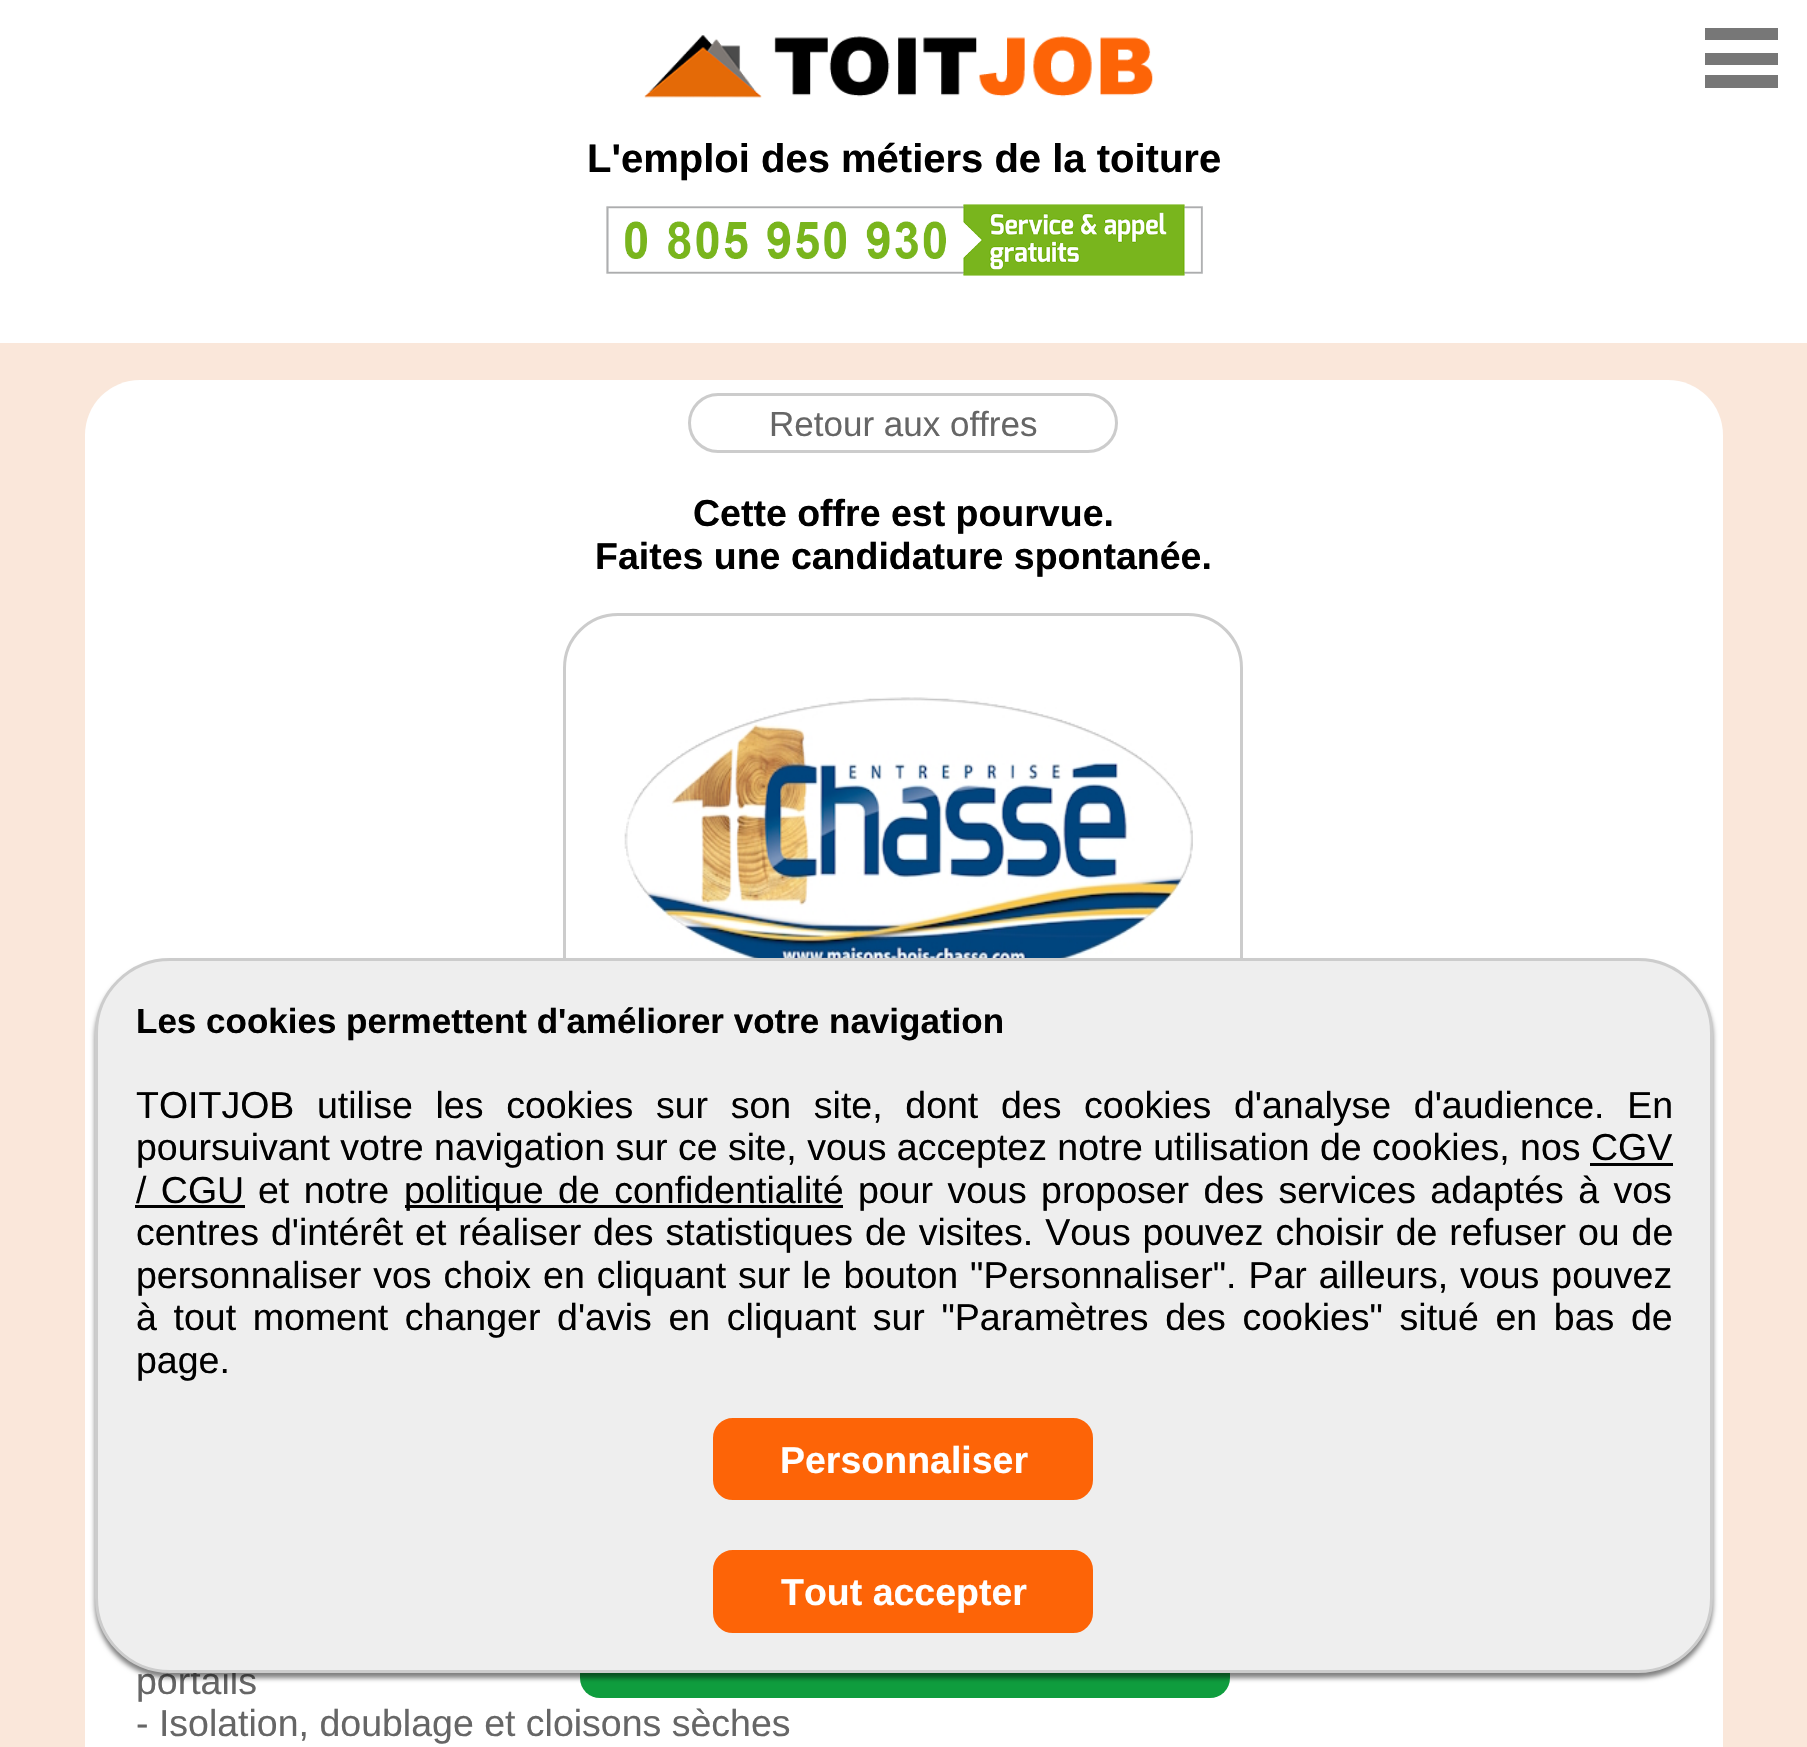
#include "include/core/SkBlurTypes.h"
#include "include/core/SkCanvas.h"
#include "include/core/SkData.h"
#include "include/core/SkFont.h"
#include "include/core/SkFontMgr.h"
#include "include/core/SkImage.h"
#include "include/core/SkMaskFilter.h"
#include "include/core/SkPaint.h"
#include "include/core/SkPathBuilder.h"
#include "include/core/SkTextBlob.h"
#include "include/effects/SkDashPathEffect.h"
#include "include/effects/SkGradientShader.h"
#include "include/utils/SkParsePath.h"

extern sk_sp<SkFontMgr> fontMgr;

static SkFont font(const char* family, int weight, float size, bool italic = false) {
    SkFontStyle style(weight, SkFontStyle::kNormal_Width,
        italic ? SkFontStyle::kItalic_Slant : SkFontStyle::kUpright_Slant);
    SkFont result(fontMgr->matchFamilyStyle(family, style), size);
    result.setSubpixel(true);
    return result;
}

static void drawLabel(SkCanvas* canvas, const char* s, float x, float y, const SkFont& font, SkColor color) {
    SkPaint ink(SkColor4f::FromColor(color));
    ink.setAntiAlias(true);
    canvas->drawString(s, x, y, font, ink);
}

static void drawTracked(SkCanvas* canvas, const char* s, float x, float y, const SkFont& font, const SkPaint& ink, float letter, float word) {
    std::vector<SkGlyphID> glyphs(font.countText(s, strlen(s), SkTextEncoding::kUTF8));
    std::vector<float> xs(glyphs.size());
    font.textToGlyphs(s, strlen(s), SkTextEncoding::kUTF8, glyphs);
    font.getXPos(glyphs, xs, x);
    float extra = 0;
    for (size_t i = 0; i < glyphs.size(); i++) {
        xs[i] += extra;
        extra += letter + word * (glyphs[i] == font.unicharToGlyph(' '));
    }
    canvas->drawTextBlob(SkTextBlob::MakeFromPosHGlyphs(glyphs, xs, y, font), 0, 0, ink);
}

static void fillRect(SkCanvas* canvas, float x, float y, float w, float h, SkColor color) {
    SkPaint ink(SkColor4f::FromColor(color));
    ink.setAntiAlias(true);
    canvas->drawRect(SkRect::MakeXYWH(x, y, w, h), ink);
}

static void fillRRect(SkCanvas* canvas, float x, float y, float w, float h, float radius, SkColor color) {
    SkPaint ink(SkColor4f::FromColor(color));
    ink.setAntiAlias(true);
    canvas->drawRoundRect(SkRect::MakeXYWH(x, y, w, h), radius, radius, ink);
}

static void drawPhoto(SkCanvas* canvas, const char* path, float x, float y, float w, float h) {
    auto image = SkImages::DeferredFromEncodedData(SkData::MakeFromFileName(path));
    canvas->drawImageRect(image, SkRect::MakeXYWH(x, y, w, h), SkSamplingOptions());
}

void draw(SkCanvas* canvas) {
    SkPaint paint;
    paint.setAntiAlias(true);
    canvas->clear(0xFFFFFFFF);
    drawPhoto(canvas, "assets/img1.png", 644, 35, 509, 63);
    fillRect(canvas, 1705, 28, 73, 12, 0xFF777777);
    fillRect(canvas, 1705, 53, 73, 12, 0xFF777777);
    fillRect(canvas, 1705, 75, 73, 13, 0xFF777777);
    SkFont font1 = font("Liberation Sans", 700, 40);
    drawLabel(canvas, "L'emploi des métiers de la toiture", 587, 172, font1, 0xFF000000);
    drawPhoto(canvas, "assets/img2.png", 606, 204, 597, 72);
    fillRect(canvas, 0, 343, 1807, 1404, 0xFFFAE7DA);
    fillRRect(canvas, 85, 380, 1638, 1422, 55, 0xFFFFFFFF);
    paint.setStroke(true);
    paint.setStrokeWidth(3);
    paint.setColor(0xFFCCCCCC);
    canvas->drawRoundRect(SkRect::MakeXYWH(689.5f, 394.5f, 427, 57), 28.5f, 28.5f, paint);
    SkFont font2 = font("Liberation Sans", 400, 35);
    drawLabel(canvas, "Retour aux offres", 769, 436, font2, 0xFF666666);
    SkFont font3 = font("Liberation Sans", 700, 37.5f);
    drawLabel(canvas, "Cette offre est pourvue.", 693, 526, font3, 0xFF000000);
    drawLabel(canvas, "Faites une candidature spontanée.", 595, 569, font3, 0xFF000000);
    canvas->drawRoundRect(SkRect::MakeXYWH(564.5f, 614.5f, 677, 472), 53.5f, 53.5f, paint);
    drawPhoto(canvas, "assets/img3.png", 624, 697, 569, 261);
    SkFont font4 = font("Liberation Sans", 400, 37.5f);
    drawLabel(canvas, "portails", 136, 1694, font4, 0xFF666666);
    drawLabel(canvas, "- Isolation, doublage et cloisons sèches", 136, 1736, font4, 0xFF666666);
    fillRRect(canvas, 580, 1578, 650, 120, 20, 0xFF0F9D3E);
    paint.setStroke(false);
    paint.setColor(0x80000000);
    paint.setMaskFilter(SkMaskFilter::MakeBlur(kNormal_SkBlurStyle, 2.5f));
    canvas->drawRoundRect(SkRect::MakeXYWH(95, 963, 1618, 715), 75, 75, paint);
    paint.setMaskFilter(nullptr);
    paint.setColor(0xFFEEEEEE);
    canvas->drawRoundRect(SkRect::MakeXYWH(96.5f, 959.5f, 1615, 712), 73.5f, 73.5f, paint);
    paint.setStroke(true);
    paint.setColor(0xFFCCCCCC);
    canvas->drawRoundRect(SkRect::MakeXYWH(96.5f, 959.5f, 1615, 712), 73.5f, 73.5f, paint);
    SkFont font5 = font("Liberation Sans", 700, 35);
    drawLabel(canvas, "Les cookies permettent d'améliorer votre navigation", 136, 1033, font5, 0xFF000000);
    paint.setStroke(false);
    paint.setColor(0xFF000000);
    drawTracked(canvas, "TOITJOB utilise les cookies sur son site, dont des cookies d'analyse d'audience. En", 136, 1118, font4, paint, 0, 12.25f);
    drawLabel(canvas, "poursuivant votre navigation sur ce site, vous acceptez notre utilisation de cookies, nos CGV", 136, 1160, font4, 0xFF000000);
    drawTracked(canvas, "/ CGU", 136, 1203, font4, paint, 0, 4);
    fillRect(canvas, 1590, 1163, 83, 3, 0xFF000000);
    fillRect(canvas, 135, 1205, 110, 3, 0xFF000000);
    drawTracked(canvas, "et notre", 258, 1203, font4, paint, 0, 4);
    fillRect(canvas, 405, 1205, 438, 3, 0xFF000000);
    drawTracked(canvas, "politique de confidentialité", 404, 1203, font4, paint, 0, 4);
    drawTracked(canvas, "pour vous proposer des services adaptés à vos", 858, 1203, font4, paint, 0, 4);
    drawTracked(canvas, "centres d'intérêt et réaliser des statistiques de visites. Vous pouvez choisir de refuser ou de", 136, 1245, font4, paint, 0, 1.5f);
    drawTracked(canvas, "personnaliser vos choix en cliquant sur le bouton \"Personnaliser\". Par ailleurs, vous pouvez", 136, 1288, font4, paint, 0, 1.6f);
    drawTracked(canvas, "à tout moment changer d'avis en cliquant sur \"Paramètres des cookies\" situé en bas de", 136, 1330, font4, paint, 0, 6.25f);
    drawLabel(canvas, "page.", 136, 1373, font4, 0xFF000000);
    paint.setColor(0xFFFD6407);
    canvas->drawRoundRect(SkRect::MakeXYWH(714.5f, 1419.5f, 377, 79), 18.5f, 18.5f, paint);
    paint.setStroke(true);
    canvas->drawRoundRect(SkRect::MakeXYWH(714.5f, 1419.5f, 377, 79), 18.5f, 18.5f, paint);
    drawLabel(canvas, "Personnaliser", 780, 1473, font3, 0xFFFFFFFF);
    paint.setStroke(false);
    canvas->drawRoundRect(SkRect::MakeXYWH(714.5f, 1551.5f, 377, 80), 18.5f, 18.5f, paint);
    paint.setStroke(true);
    canvas->drawRoundRect(SkRect::MakeXYWH(714.5f, 1551.5f, 377, 80), 18.5f, 18.5f, paint);
    drawLabel(canvas, "Tout accepter", 781, 1605, font3, 0xFFFFFFFF);
}
